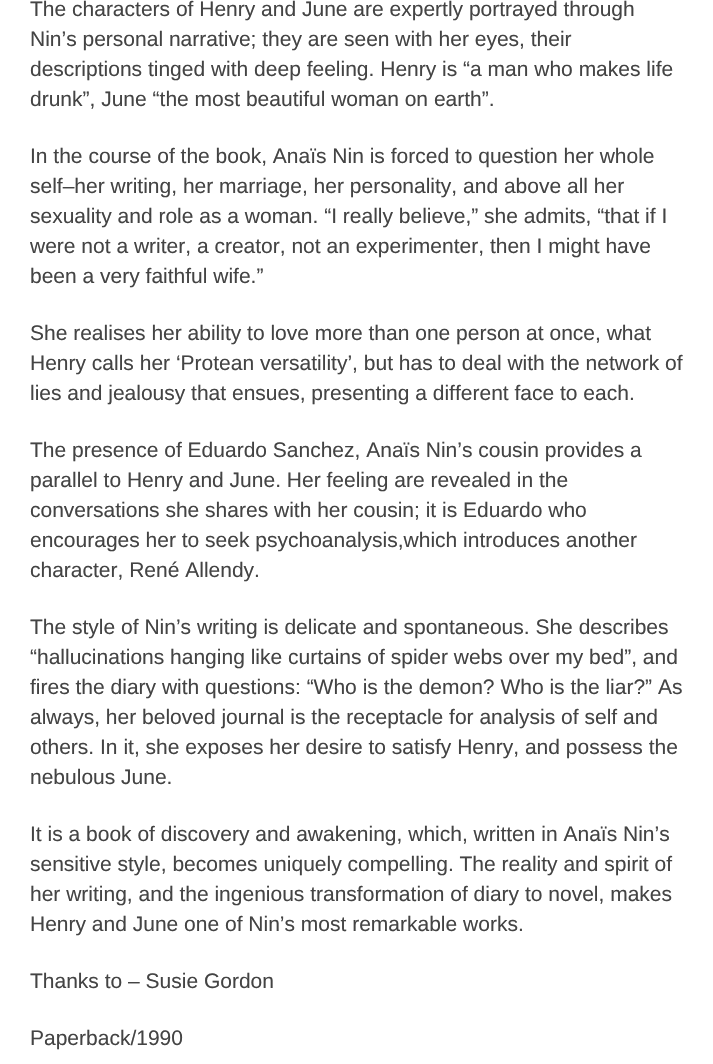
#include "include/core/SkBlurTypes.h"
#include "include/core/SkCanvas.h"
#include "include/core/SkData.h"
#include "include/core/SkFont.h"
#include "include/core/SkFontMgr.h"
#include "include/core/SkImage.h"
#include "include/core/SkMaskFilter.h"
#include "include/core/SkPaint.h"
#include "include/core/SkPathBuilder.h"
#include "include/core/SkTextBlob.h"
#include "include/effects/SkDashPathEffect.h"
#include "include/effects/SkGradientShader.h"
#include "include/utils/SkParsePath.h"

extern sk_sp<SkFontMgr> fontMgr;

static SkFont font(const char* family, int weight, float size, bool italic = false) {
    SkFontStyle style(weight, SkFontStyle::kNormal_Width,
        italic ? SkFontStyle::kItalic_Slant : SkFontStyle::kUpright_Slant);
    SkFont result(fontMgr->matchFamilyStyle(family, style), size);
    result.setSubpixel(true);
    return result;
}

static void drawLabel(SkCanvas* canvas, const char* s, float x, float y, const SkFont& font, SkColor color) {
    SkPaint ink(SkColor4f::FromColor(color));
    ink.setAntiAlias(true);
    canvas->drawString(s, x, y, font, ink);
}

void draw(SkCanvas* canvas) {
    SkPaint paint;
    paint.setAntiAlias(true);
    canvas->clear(0xFFFFFFFF);
    SkFont font1 = font("Liberation Sans", 400, 21);
    drawLabel(canvas, "The characters of Henry and June are expertly portrayed through", 30, 16, font1, 0xFF444444);
    drawLabel(canvas, "Nin’s personal narrative; they are seen with her eyes, their", 30, 46, font1, 0xFF444444);
    drawLabel(canvas, "descriptions tinged with deep feeling. Henry is “a man who makes life", 30, 76, font1, 0xFF444444);
    drawLabel(canvas, "drunk”, June “the most beautiful woman on earth”.", 30, 106, font1, 0xFF444444);
    drawLabel(canvas, "In the course of the book, Anaïs Nin is forced to question her whole", 30, 163, font1, 0xFF444444);
    drawLabel(canvas, "self–her writing, her marriage, her personality, and above all her", 30, 193, font1, 0xFF444444);
    drawLabel(canvas, "sexuality and role as a woman. “I really believe,” she admits, “that if I", 30, 223, font1, 0xFF444444);
    drawLabel(canvas, "were not a writer, a creator, not an experimenter, then I might have", 30, 253, font1, 0xFF444444);
    drawLabel(canvas, "been a very faithful wife.”", 30, 283, font1, 0xFF444444);
    drawLabel(canvas, "She realises her ability to love more than one person at once, what", 30, 340, font1, 0xFF444444);
    drawLabel(canvas, "Henry calls her ‘Protean versatility’, but has to deal with the network of", 30, 370, font1, 0xFF444444);
    drawLabel(canvas, "lies and jealousy that ensues, presenting a different face to each.", 30, 400, font1, 0xFF444444);
    drawLabel(canvas, "The presence of Eduardo Sanchez, Anaïs Nin’s cousin provides a", 30, 457, font1, 0xFF444444);
    drawLabel(canvas, "parallel to Henry and June. Her feeling are revealed in the", 30, 487, font1, 0xFF444444);
    drawLabel(canvas, "conversations she shares with her cousin; it is Eduardo who", 30, 517, font1, 0xFF444444);
    drawLabel(canvas, "encourages her to seek psychoanalysis,which introduces another", 30, 547, font1, 0xFF444444);
    drawLabel(canvas, "character, René Allendy.", 30, 577, font1, 0xFF444444);
    drawLabel(canvas, "The style of Nin’s writing is delicate and spontaneous. She describes", 30, 634, font1, 0xFF444444);
    drawLabel(canvas, "“hallucinations hanging like curtains of spider webs over my bed”, and", 30, 664, font1, 0xFF444444);
    drawLabel(canvas, "fires the diary with questions: “Who is the demon? Who is the liar?” As", 30, 694, font1, 0xFF444444);
    drawLabel(canvas, "always, her beloved journal is the receptacle for analysis of self and", 30, 724, font1, 0xFF444444);
    drawLabel(canvas, "others. In it, she exposes her desire to satisfy Henry, and possess the", 30, 754, font1, 0xFF444444);
    drawLabel(canvas, "nebulous June.", 30, 784, font1, 0xFF444444);
    drawLabel(canvas, "It is a book of discovery and awakening, which, written in Anaïs Nin’s", 30, 841, font1, 0xFF444444);
    drawLabel(canvas, "sensitive style, becomes uniquely compelling. The reality and spirit of", 30, 871, font1, 0xFF444444);
    drawLabel(canvas, "her writing, and the ingenious transformation of diary to novel, makes", 30, 901, font1, 0xFF444444);
    drawLabel(canvas, "Henry and June one of Nin’s most remarkable works.", 30, 931, font1, 0xFF444444);
    drawLabel(canvas, "Thanks to – Susie Gordon", 30, 988, font1, 0xFF444444);
    drawLabel(canvas, "Paperback/1990", 30, 1045, font1, 0xFF444444);
}
